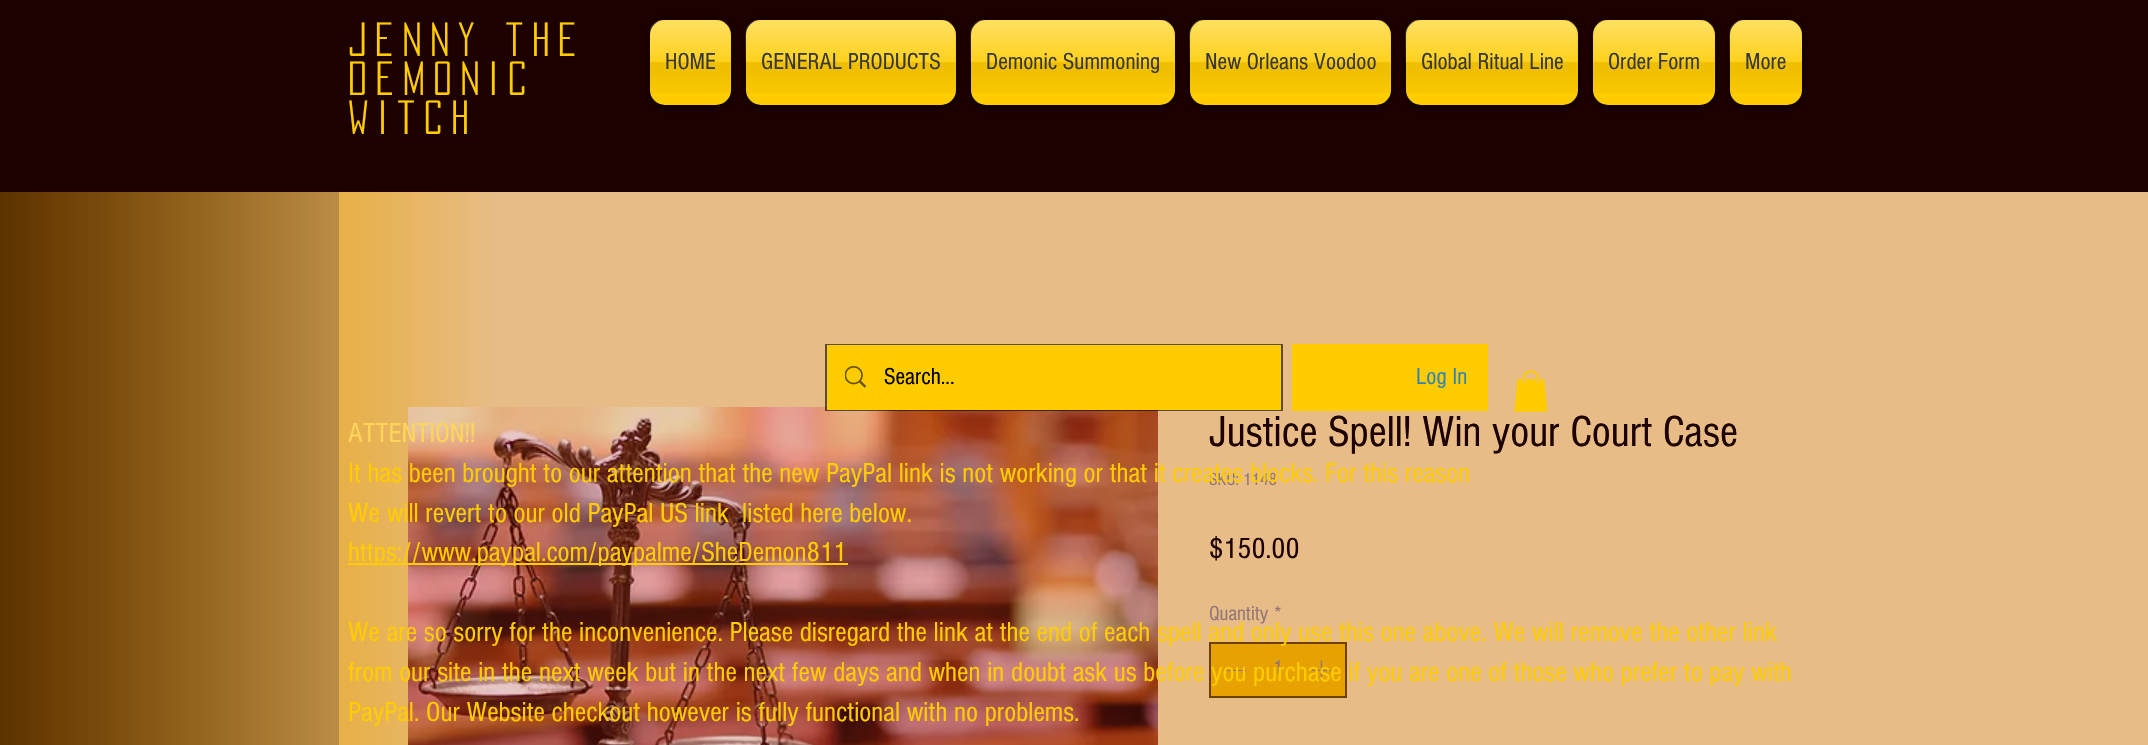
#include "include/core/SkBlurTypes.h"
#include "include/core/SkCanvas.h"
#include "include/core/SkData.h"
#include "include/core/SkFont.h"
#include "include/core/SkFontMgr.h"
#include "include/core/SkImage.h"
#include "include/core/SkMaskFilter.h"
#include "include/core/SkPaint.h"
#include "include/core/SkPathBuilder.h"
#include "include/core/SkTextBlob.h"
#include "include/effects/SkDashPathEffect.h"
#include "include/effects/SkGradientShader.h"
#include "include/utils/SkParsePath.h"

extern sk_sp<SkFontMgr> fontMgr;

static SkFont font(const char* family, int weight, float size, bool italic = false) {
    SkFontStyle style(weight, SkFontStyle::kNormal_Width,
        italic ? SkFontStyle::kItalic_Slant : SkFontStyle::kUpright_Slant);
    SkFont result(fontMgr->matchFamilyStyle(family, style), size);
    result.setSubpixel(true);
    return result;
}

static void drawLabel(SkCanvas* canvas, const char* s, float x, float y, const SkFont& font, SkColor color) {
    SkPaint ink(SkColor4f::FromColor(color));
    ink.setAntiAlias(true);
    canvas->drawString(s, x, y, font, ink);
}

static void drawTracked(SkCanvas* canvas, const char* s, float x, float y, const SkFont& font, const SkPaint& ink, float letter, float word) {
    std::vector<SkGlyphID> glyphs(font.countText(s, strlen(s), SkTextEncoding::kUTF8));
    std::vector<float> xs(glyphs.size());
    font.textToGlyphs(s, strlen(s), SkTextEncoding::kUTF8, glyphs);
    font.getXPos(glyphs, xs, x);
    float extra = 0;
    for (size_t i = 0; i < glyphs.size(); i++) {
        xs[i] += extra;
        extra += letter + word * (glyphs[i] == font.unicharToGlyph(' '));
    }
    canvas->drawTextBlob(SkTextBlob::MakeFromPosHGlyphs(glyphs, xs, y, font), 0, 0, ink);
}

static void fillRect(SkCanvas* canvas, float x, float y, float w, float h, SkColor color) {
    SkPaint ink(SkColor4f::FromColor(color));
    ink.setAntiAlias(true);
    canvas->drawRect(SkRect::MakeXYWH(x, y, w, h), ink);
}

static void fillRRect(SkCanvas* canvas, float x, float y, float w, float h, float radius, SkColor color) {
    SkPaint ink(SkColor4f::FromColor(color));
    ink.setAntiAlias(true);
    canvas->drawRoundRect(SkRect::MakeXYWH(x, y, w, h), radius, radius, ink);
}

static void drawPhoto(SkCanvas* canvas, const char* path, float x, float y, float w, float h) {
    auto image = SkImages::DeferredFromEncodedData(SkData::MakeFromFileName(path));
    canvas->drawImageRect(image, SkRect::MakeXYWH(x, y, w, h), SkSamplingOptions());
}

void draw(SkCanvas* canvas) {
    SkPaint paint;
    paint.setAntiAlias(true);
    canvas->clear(0xFF1D0000);
    SkFont font1 = font("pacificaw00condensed", 400, 42);
    paint.setColor(0xFFFFCC00);
    drawTracked(canvas, "Jenny the", 348, 56, font1, paint, 8.5f, 0);
    drawTracked(canvas, "demonic", 348, 95, font1, paint, 8.5f, 0);
    drawTracked(canvas, "witch", 348, 134, font1, paint, 8.5f, 0);
    paint.setColor(0x99000000);
    paint.setMaskFilter(SkMaskFilter::MakeBlur(kNormal_SkBlurStyle, 3));
    canvas->drawRoundRect(SkRect::MakeXYWH(650, 21, 81, 86), 15, 15, paint);
    paint.setMaskFilter(nullptr);
    fillRRect(canvas, 650, 20, 81, 85, 15, 0xFFFFCC00);
    drawPhoto(canvas, "assets/img1.png", 650, 20, 81, 73);
    SkFont font2 = font("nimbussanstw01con", 400, 24);
    drawLabel(canvas, "HOME", 665, 69, font2, 0xFF383838);
    paint.setMaskFilter(SkMaskFilter::MakeBlur(kNormal_SkBlurStyle, 3));
    canvas->drawRoundRect(SkRect::MakeXYWH(746, 21, 210, 86), 15, 15, paint);
    paint.setMaskFilter(nullptr);
    fillRRect(canvas, 746, 20, 210, 85, 15, 0xFFFFCC00);
    drawPhoto(canvas, "assets/img2.png", 745, 20, 211, 73);
    drawLabel(canvas, "GENERAL PRODUCTS", 761, 69, font2, 0xFF383838);
    paint.setMaskFilter(SkMaskFilter::MakeBlur(kNormal_SkBlurStyle, 3));
    canvas->drawRoundRect(SkRect::MakeXYWH(971, 21, 204, 86), 15, 15, paint);
    paint.setMaskFilter(nullptr);
    fillRRect(canvas, 971, 20, 204, 85, 15, 0xFFFFCC00);
    drawPhoto(canvas, "assets/img3.png", 970, 20, 205, 73);
    drawLabel(canvas, "Demonic Summoning", 986, 69, font2, 0xFF383838);
    paint.setMaskFilter(SkMaskFilter::MakeBlur(kNormal_SkBlurStyle, 3));
    canvas->drawRoundRect(SkRect::MakeXYWH(1190, 21, 201, 86), 15, 15, paint);
    paint.setMaskFilter(nullptr);
    fillRRect(canvas, 1190, 20, 201, 85, 15, 0xFFFFCC00);
    drawPhoto(canvas, "assets/img4.png", 1189, 20, 202, 73);
    drawLabel(canvas, "New Orleans Voodoo", 1205, 69, font2, 0xFF383838);
    paint.setMaskFilter(SkMaskFilter::MakeBlur(kNormal_SkBlurStyle, 3));
    canvas->drawRoundRect(SkRect::MakeXYWH(1406, 21, 172, 86), 15, 15, paint);
    paint.setMaskFilter(nullptr);
    fillRRect(canvas, 1406, 20, 172, 85, 15, 0xFFFFCC00);
    drawPhoto(canvas, "assets/img5.png", 1405, 20, 174, 73);
    drawLabel(canvas, "Global Ritual Line", 1421, 69, font2, 0xFF383838);
    paint.setMaskFilter(SkMaskFilter::MakeBlur(kNormal_SkBlurStyle, 3));
    canvas->drawRoundRect(SkRect::MakeXYWH(1593, 21, 122, 86), 15, 15, paint);
    paint.setMaskFilter(nullptr);
    fillRRect(canvas, 1593, 20, 122, 85, 15, 0xFFFFCC00);
    drawPhoto(canvas, "assets/img6.png", 1592, 20, 123, 73);
    drawLabel(canvas, "Order Form", 1608, 69, font2, 0xFF383838);
    paint.setMaskFilter(SkMaskFilter::MakeBlur(kNormal_SkBlurStyle, 3));
    canvas->drawRoundRect(SkRect::MakeXYWH(1730, 21, 72, 86), 15, 15, paint);
    paint.setMaskFilter(nullptr);
    fillRRect(canvas, 1730, 20, 72, 85, 15, 0xFFFFCC00);
    drawPhoto(canvas, "assets/img7.png", 1729, 20, 73, 73);
    drawLabel(canvas, "More", 1745, 69, font2, 0xFF383838);
    fillRect(canvas, 339, 192, 151, 553, 0xFFE7A100);
    {
        const SkColor colors[] = {0x4FE7A100, 0xFFE7BC86};
        const float stops[] = {0, 0.23f};
        const SkPoint ends[] = {{0, 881}, {2148, 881}};
        paint.setShader(SkGradientShader::MakeLinear(ends, colors, stops, 2, SkTileMode::kClamp));
        paint.setAlpha(255);
    }
    canvas->drawRect(SkRect::MakeXYWH(0, 192, 2148, 553), paint);
    drawPhoto(canvas, "assets/img10.png", 408, 407, 750, 338);
    paint.setStroke(true);
    paint.setStrokeWidth(2);
    paint.setShader(nullptr);
    paint.setColor(0x99000000);
    canvas->drawRect(SkRect::MakeXYWH(826, 345, 456, 65), paint);
    fillRect(canvas, 827, 345, 454, 65, 0xFFFFCC00);
    drawPhoto(canvas, "assets/img8.png", 845, 366, 21, 22);
    drawLabel(canvas, "Search...", 884, 384, font2, 0xFF000000);
    fillRect(canvas, 1292, 344, 196, 67, 0xFFFFCC00);
    drawLabel(canvas, "Log In", 1416, 384, font2, 0xFF3182B5);
    drawPhoto(canvas, "assets/img9.png", 1514, 370, 34, 42);
    SkFont font3 = font("nimbussanstw01con", 400, 28.5f);
    drawLabel(canvas, "ATTENTION!!", 348, 442, font3, 0xFFFFD45A);
    SkFont font4 = font("nimbussanstw01con", 400, 18);
    drawLabel(canvas, "SKU: 1148", 1209, 485, font4, 0xFF937677);
    drawLabel(canvas, "It has been brought to our attention that the new PayPal link is not working or that it creates blocks. For this reason", 348, 482, font3, 0xFFFFCC00);
    drawLabel(canvas, "We will revert to our old PayPal US link  listed here below.", 348, 522, font3, 0xFFFFCC00);
    fillRect(canvas, 348, 563, 500, 2, 0xFFFFCC00);
    drawLabel(canvas, "https://www.paypal.com/paypalme/SheDemon811", 348, 561, font3, 0xFFFFCC00);
    paint.setStroke(false);
    paint.setColor(0xFFE7A100);
    canvas->drawRect(SkRect::MakeXYWH(1210, 643, 136, 54), paint);
    paint.setStroke(true);
    paint.setColor(0xFF6E4100);
    canvas->drawRect(SkRect::MakeXYWH(1210, 643, 136, 54), paint);
    drawLabel(canvas, "We are so sorry for the inconvenience. Please disregard the link at the end of each spell and only use this one above. We will remove the other link", 348, 641, font3, 0xFFFFCC00);
    fillRect(canvas, 1226, 670, 20, 1, 0xFF937677);
    SkFont font5 = font("nimbussanstw01con", 400, 21);
    drawLabel(canvas, "1", 1273, 674, font5, 0xFF937677);
    drawPhoto(canvas, "assets/img11.png", 1311, 660, 21, 21);
    drawLabel(canvas, "from our site in the next week but in the next few days and when in doubt ask us before you purchase if you are one of those who prefer to pay with", 348, 681, font3, 0xFFFFCC00);
    drawLabel(canvas, "PayPal. Our Website checkout however is fully functional with no problems.", 348, 721, font3, 0xFFFFCC00);
    SkFont font6 = font("nimbussanstw01con", 400, 45);
    drawLabel(canvas, "Justice Spell! Win your Court Case", 1209, 446, font6, 0xFF1D0000);
    SkFont font7 = font("nimbussanstw01con", 400, 30);
    drawLabel(canvas, "$150.00", 1209, 558, font7, 0xFF1D0000);
    drawLabel(canvas, "Quantity", 1209, 620, font5, 0xFF937677);
    drawLabel(canvas, "*", 1274, 620, font5, 0xFF937677);
}
